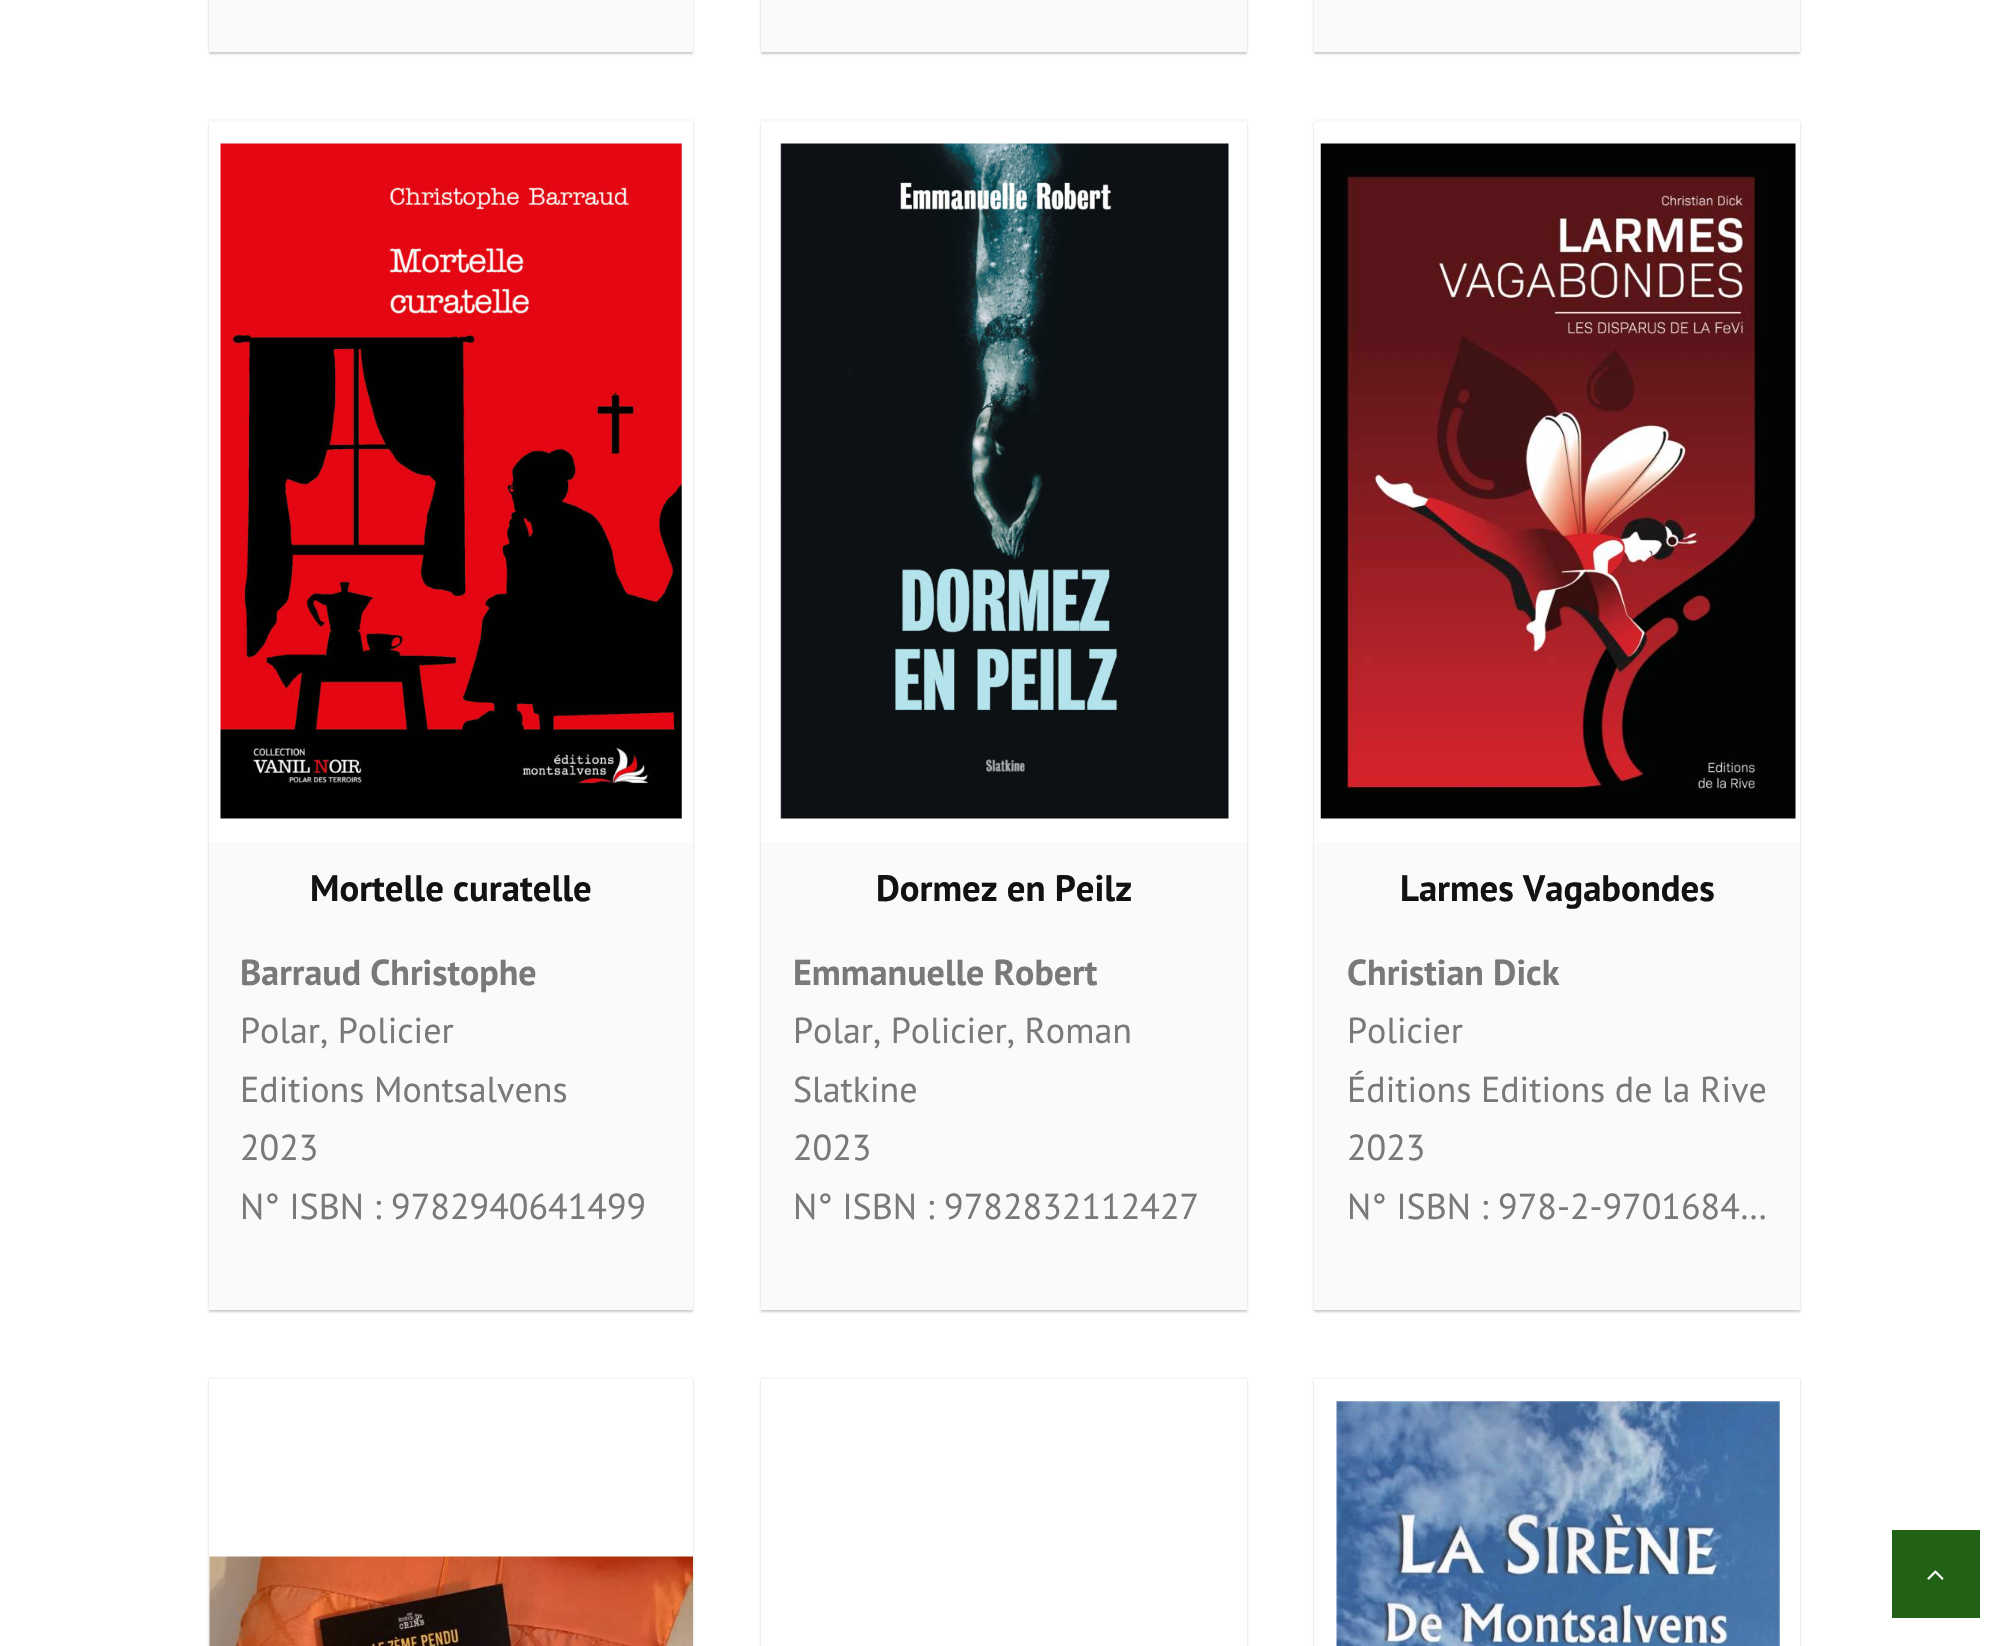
#include "include/core/SkBlurTypes.h"
#include "include/core/SkCanvas.h"
#include "include/core/SkData.h"
#include "include/core/SkFont.h"
#include "include/core/SkFontMgr.h"
#include "include/core/SkImage.h"
#include "include/core/SkMaskFilter.h"
#include "include/core/SkPaint.h"
#include "include/core/SkPathBuilder.h"
#include "include/core/SkTextBlob.h"
#include "include/effects/SkDashPathEffect.h"
#include "include/effects/SkGradientShader.h"
#include "include/utils/SkParsePath.h"

extern sk_sp<SkFontMgr> fontMgr;

static SkFont font(const char* family, int weight, float size, bool italic = false) {
    SkFontStyle style(weight, SkFontStyle::kNormal_Width,
        italic ? SkFontStyle::kItalic_Slant : SkFontStyle::kUpright_Slant);
    SkFont result(fontMgr->matchFamilyStyle(family, style), size);
    result.setSubpixel(true);
    return result;
}

static void drawLabel(SkCanvas* canvas, const char* s, float x, float y, const SkFont& font, SkColor color) {
    SkPaint ink(SkColor4f::FromColor(color));
    ink.setAntiAlias(true);
    canvas->drawString(s, x, y, font, ink);
}

static void fillRect(SkCanvas* canvas, float x, float y, float w, float h, SkColor color) {
    SkPaint ink(SkColor4f::FromColor(color));
    ink.setAntiAlias(true);
    canvas->drawRect(SkRect::MakeXYWH(x, y, w, h), ink);
}

static void drawPhoto(SkCanvas* canvas, const char* path, float x, float y, float w, float h) {
    auto image = SkImages::DeferredFromEncodedData(SkData::MakeFromFileName(path));
    canvas->drawImageRect(image, SkRect::MakeXYWH(x, y, w, h), SkSamplingOptions());
}

void draw(SkCanvas* canvas) {
    SkPaint paint;
    paint.setAntiAlias(true);
    canvas->clear(0xFFFFFFFF);
    paint.setColor(0x33000000);
    paint.setMaskFilter(SkMaskFilter::MakeBlur(kNormal_SkBlurStyle, 1));
    canvas->drawRect(SkRect::MakeXYWH(209, -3, 484, 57), paint);
    paint.setMaskFilter(nullptr);
    fillRect(canvas, 209, 0, 484, 52, 0xFFFAFAFA);
    paint.setMaskFilter(SkMaskFilter::MakeBlur(kNormal_SkBlurStyle, 1));
    canvas->drawRect(SkRect::MakeXYWH(761, -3, 486, 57), paint);
    paint.setMaskFilter(nullptr);
    fillRect(canvas, 761, 0, 486, 52, 0xFFFAFAFA);
    paint.setMaskFilter(SkMaskFilter::MakeBlur(kNormal_SkBlurStyle, 1));
    canvas->drawRect(SkRect::MakeXYWH(1314, -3, 486, 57), paint);
    paint.setMaskFilter(nullptr);
    fillRect(canvas, 1314, 0, 486, 52, 0xFFFAFAFA);
    paint.setMaskFilter(SkMaskFilter::MakeBlur(kNormal_SkBlurStyle, 1));
    canvas->drawRect(SkRect::MakeXYWH(209, 122, 484, 1190), paint);
    paint.setMaskFilter(nullptr);
    fillRect(canvas, 209, 121, 484, 1189, 0xFFFAFAFA);
    fillRect(canvas, 209, 119, 484, 2, 0xFFF8F8F8);
    fillRect(canvas, 209, 122, 484, 720, 0xFFFFFFFF);
    drawPhoto(canvas, "assets/img1.png", 220, 143, 462, 676);
    SkFont font1 = font("PT Sans", 700, 36.75f);
    drawLabel(canvas, "Mortelle curatelle", 310, 901, font1, 0xFF121212);
    SkFont font2 = font("PT Sans", 700, 36);
    drawLabel(canvas, "Barraud Christophe", 240, 985, font2, 0xFF797979);
    SkFont font3 = font("PT Sans", 400, 36);
    drawLabel(canvas, "Polar, Policier", 240, 1043, font3, 0xFF797979);
    drawLabel(canvas, "Editions Montsalvens", 240, 1102, font3, 0xFF797979);
    drawLabel(canvas, "2023", 240, 1160, font3, 0xFF797979);
    drawLabel(canvas, "N° ISBN : 9782940641499", 240, 1219, font3, 0xFF797979);
    paint.setMaskFilter(SkMaskFilter::MakeBlur(kNormal_SkBlurStyle, 1));
    canvas->drawRect(SkRect::MakeXYWH(761, 122, 486, 1190), paint);
    paint.setMaskFilter(nullptr);
    fillRect(canvas, 761, 121, 486, 1189, 0xFFFAFAFA);
    fillRect(canvas, 761, 119, 486, 2, 0xFFF8F8F8);
    fillRect(canvas, 761, 122, 486, 720, 0xFFFFFFFF);
    drawPhoto(canvas, "assets/img2.png", 780, 143, 449, 676);
    drawLabel(canvas, "Dormez en Peilz", 876, 901, font1, 0xFF121212);
    drawLabel(canvas, "Emmanuelle Robert", 793, 985, font2, 0xFF797979);
    drawLabel(canvas, "Polar, Policier, Roman", 793, 1043, font3, 0xFF797979);
    drawLabel(canvas, "Slatkine", 793, 1102, font3, 0xFF797979);
    drawLabel(canvas, "2023", 793, 1160, font3, 0xFF797979);
    drawLabel(canvas, "N° ISBN : 9782832112427", 793, 1219, font3, 0xFF797979);
    paint.setMaskFilter(SkMaskFilter::MakeBlur(kNormal_SkBlurStyle, 1));
    canvas->drawRect(SkRect::MakeXYWH(1314, 122, 486, 1190), paint);
    paint.setMaskFilter(nullptr);
    fillRect(canvas, 1314, 121, 486, 1189, 0xFFFAFAFA);
    fillRect(canvas, 1314, 119, 486, 2, 0xFFF8F8F8);
    fillRect(canvas, 1314, 122, 486, 720, 0xFFFFFFFF);
    drawPhoto(canvas, "assets/img3.png", 1320, 143, 476, 676);
    drawLabel(canvas, "Larmes Vagabondes", 1400, 901, font1, 0xFF121212);
    drawLabel(canvas, "Christian Dick", 1347, 985, font2, 0xFF797979);
    drawLabel(canvas, "Policier", 1347, 1043, font3, 0xFF797979);
    drawLabel(canvas, "Éditions Editions de la Rive", 1347, 1102, font3, 0xFF797979);
    drawLabel(canvas, "2023", 1347, 1160, font3, 0xFF797979);
    drawLabel(canvas, "N° ISBN : 978-2-9701684…", 1347, 1219, font3, 0xFF797979);
    paint.setMaskFilter(SkMaskFilter::MakeBlur(kNormal_SkBlurStyle, 1));
    canvas->drawRect(SkRect::MakeXYWH(209, 1379, 484, 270), paint);
    paint.setMaskFilter(nullptr);
    fillRect(canvas, 209, 1377, 484, 2, 0xFFF8F8F8);
    fillRect(canvas, 209, 1379, 484, 267, 0xFFFFFFFF);
    drawPhoto(canvas, "assets/img4.png", 209, 1556, 484, 90);
    paint.setMaskFilter(SkMaskFilter::MakeBlur(kNormal_SkBlurStyle, 1));
    canvas->drawRect(SkRect::MakeXYWH(761, 1379, 486, 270), paint);
    paint.setMaskFilter(nullptr);
    fillRect(canvas, 761, 1377, 486, 2, 0xFFF8F8F8);
    fillRect(canvas, 761, 1379, 486, 267, 0xFFFFFFFF);
    paint.setMaskFilter(SkMaskFilter::MakeBlur(kNormal_SkBlurStyle, 1));
    canvas->drawRect(SkRect::MakeXYWH(1314, 1379, 486, 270), paint);
    paint.setMaskFilter(nullptr);
    fillRect(canvas, 1314, 1377, 486, 2, 0xFFF8F8F8);
    fillRect(canvas, 1314, 1379, 486, 267, 0xFFFFFFFF);
    drawPhoto(canvas, "assets/img5.png", 1336, 1401, 444, 245);
    fillRect(canvas, 1892, 1530, 88, 88, 0xFF226216);
    drawPhoto(canvas, "assets/img6.png", 1927, 1570, 17, 10);
}
